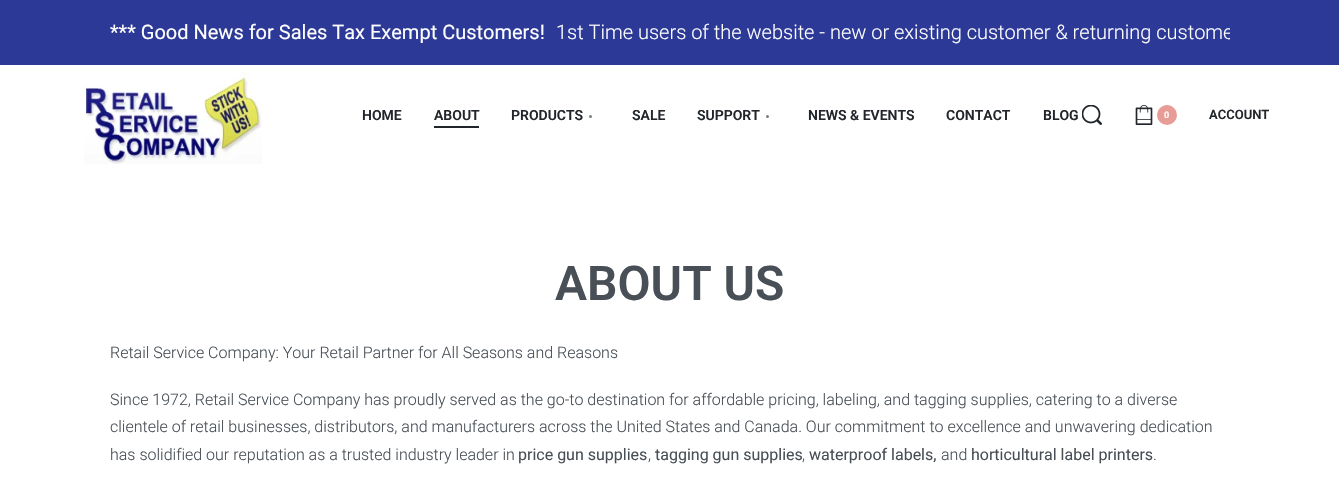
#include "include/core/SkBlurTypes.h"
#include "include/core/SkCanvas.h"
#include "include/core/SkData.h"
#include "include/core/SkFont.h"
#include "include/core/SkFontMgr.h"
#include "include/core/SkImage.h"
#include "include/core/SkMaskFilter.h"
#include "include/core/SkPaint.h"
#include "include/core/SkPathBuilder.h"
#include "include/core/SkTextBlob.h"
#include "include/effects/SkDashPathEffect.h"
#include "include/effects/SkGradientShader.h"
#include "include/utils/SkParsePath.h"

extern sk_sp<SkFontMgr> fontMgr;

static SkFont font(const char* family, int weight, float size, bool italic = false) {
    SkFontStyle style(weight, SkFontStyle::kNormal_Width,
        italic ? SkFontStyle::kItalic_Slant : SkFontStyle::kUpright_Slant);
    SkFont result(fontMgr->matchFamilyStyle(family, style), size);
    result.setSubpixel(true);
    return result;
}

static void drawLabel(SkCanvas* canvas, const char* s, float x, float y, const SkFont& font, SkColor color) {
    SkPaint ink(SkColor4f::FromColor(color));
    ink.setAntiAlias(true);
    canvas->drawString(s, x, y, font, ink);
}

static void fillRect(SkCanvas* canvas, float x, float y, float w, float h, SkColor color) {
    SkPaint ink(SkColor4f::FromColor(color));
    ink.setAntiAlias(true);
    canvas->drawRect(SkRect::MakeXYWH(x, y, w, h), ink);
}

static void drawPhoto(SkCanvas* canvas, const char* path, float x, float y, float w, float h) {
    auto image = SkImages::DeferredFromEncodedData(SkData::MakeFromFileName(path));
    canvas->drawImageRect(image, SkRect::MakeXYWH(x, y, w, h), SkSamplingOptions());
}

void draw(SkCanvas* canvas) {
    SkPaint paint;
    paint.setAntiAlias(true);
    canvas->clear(0xFFFFFFFF);
    fillRect(canvas, 0, 0, 1339, 65, 0xFF2C3996);
    SkFont font1 = font("Roboto", 400, 20);
    drawLabel(canvas, "*** Good News for Sales Tax Exempt Customers!", 110, 39, font1, 0xFFFFFFFF);
    canvas->save();
    canvas->clipRect(SkRect::MakeXYWH(110, 10, 1120, 45));
    SkFont font2 = font("Roboto", 300, 20);
    drawLabel(canvas, "1st Time users of the website - new or existing customer & returning custome", 556, 39, font2, 0xFFFFFFFF);
    canvas->restore();
    drawPhoto(canvas, "assets/img1.png", 84, 72, 178, 92);
    SkFont font3 = font("Roboto", 600, 14);
    drawLabel(canvas, "HOME", 362, 120, font3, 0xFF22262A);
    drawLabel(canvas, "ABOUT", 434, 120, font3, 0xFF22262A);
    fillRect(canvas, 434, 126, 45, 2, 0xFF22262A);
    drawLabel(canvas, "PRODUCTS", 511, 120, font3, 0xFF22262A);
    paint.setColor(0xFF7A7D7F);
    canvas->drawCircle(590.5f, 116.5f, 1.5f, paint);
    drawLabel(canvas, "SALE", 632, 120, font3, 0xFF22262A);
    drawLabel(canvas, "SUPPORT", 697, 120, font3, 0xFF22262A);
    canvas->drawCircle(767.5f, 116.5f, 1.5f, paint);
    drawLabel(canvas, "NEWS & EVENTS", 808, 120, font3, 0xFF22262A);
    drawLabel(canvas, "CONTACT", 946, 120, font3, 0xFF22262A);
    drawLabel(canvas, "BLOG", 1043, 120, font3, 0xFF22262A);
    drawPhoto(canvas, "assets/img2.png", 1082, 105, 20, 20);
    drawPhoto(canvas, "assets/img3.png", 1135, 105, 18, 20);
    paint.setColor(0xFFE79C96);
    canvas->drawCircle(1167, 115, 10, paint);
    SkFont font4 = font("Roboto", 600, 9);
    drawLabel(canvas, "0", 1164, 118, font4, 0xFFFFFFFF);
    SkFont font5 = font("Roboto", 600, 13);
    drawLabel(canvas, "ACCOUNT", 1209, 119, font5, 0xFF22262A);
    SkFont font6 = font("Roboto", 600, 48);
    drawLabel(canvas, "ABOUT US", 555, 300, font6, 0xFF484F56);
    SkFont font7 = font("Roboto", 300, 16);
    drawLabel(canvas, "Retail Service Company: Your Retail Partner for All Seasons and Reasons", 110, 358, font7, 0xFF484F56);
    drawLabel(canvas, "Since 1972, Retail Service Company has proudly served as the go-to destination for affordable pricing, labeling, and tagging supplies, catering to a diverse", 110, 405, font7, 0xFF484F56);
    drawLabel(canvas, "clientele of retail businesses, distributors, and manufacturers across the United States and Canada. Our commitment to excellence and unwavering dedication", 110, 432, font7, 0xFF484F56);
    drawLabel(canvas, "has solidified our reputation as a trusted industry leader in", 110, 460, font7, 0xFF484F56);
    SkFont font8 = font("Roboto", 400, 16);
    drawLabel(canvas, "price gun supplies", 518, 460, font8, 0xFF484F56);
    drawLabel(canvas, ",", 648, 460, font7, 0xFF484F56);
    drawLabel(canvas, "tagging gun supplies", 655, 460, font8, 0xFF484F56);
    drawLabel(canvas, ",", 802, 460, font7, 0xFF484F56);
    drawLabel(canvas, "waterproof labels,", 809, 460, font8, 0xFF484F56);
    drawLabel(canvas, "and", 941, 460, font7, 0xFF484F56);
    drawLabel(canvas, "horticultural label printers", 971, 460, font8, 0xFF484F56);
    drawLabel(canvas, ".", 1153, 460, font7, 0xFF484F56);
}
